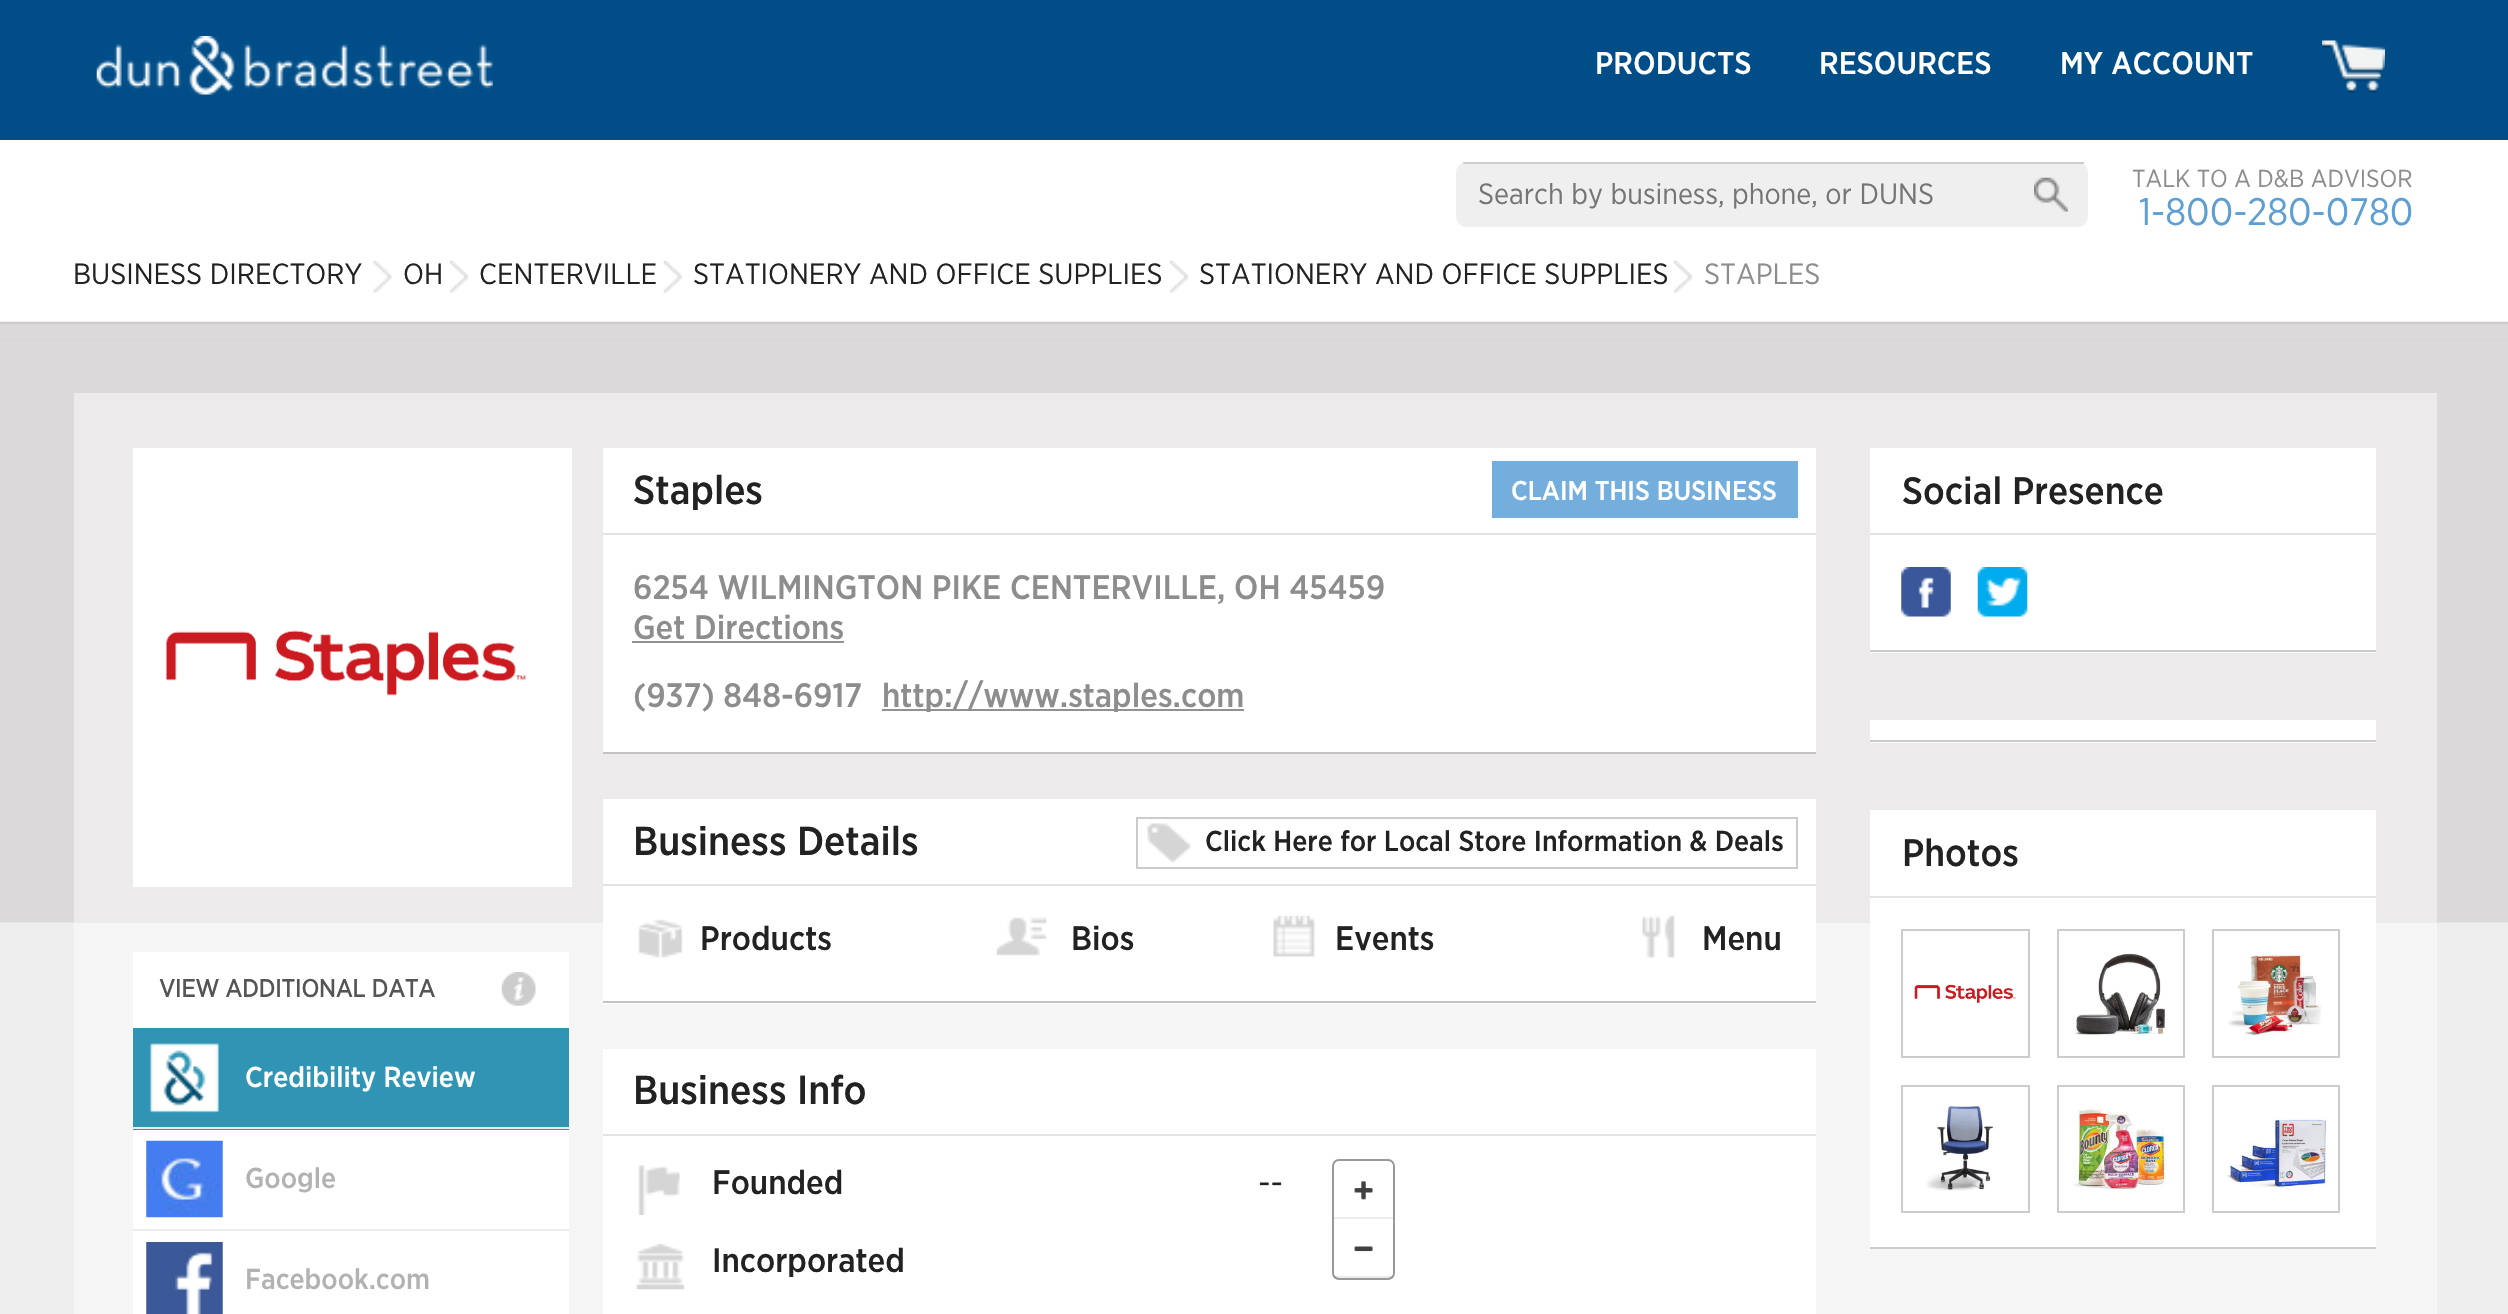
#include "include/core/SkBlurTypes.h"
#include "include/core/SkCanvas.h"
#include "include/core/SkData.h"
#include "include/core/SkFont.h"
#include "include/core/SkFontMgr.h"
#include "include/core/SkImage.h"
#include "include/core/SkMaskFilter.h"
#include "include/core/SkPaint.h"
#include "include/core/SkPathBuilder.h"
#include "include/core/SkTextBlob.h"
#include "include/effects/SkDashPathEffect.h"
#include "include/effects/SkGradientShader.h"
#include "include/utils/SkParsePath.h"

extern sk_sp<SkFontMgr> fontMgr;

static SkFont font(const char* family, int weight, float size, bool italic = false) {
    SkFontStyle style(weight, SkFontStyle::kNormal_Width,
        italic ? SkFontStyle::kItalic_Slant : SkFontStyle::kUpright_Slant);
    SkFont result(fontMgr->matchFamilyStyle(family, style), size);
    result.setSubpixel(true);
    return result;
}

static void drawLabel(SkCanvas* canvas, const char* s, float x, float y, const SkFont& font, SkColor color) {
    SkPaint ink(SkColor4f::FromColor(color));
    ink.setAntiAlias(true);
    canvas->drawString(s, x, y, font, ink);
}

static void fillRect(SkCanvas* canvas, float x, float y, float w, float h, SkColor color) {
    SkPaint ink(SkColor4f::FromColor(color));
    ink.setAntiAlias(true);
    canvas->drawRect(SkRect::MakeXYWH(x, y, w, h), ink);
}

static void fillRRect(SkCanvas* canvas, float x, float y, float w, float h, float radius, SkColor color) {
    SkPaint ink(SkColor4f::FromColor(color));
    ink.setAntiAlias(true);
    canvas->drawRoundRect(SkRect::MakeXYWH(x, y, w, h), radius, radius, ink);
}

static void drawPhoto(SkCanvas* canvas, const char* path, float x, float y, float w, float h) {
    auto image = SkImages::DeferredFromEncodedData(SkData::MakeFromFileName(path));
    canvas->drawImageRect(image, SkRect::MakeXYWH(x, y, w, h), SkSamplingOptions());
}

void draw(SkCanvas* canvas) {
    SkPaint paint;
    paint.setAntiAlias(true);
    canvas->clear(0xFFEEEEEE);
    fillRect(canvas, 0, 0, 2508, 140, 0xFF004D88);
    drawPhoto(canvas, "assets/img1.png", 96, 36, 397, 59);
    SkFont font1 = font("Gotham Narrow", 500, 31.5f);
    drawLabel(canvas, "PRODUCTS", 1595, 74, font1, 0xFFFFFFFF);
    drawLabel(canvas, "RESOURCES", 1819, 74, font1, 0xFFFFFFFF);
    drawLabel(canvas, "MY ACCOUNT", 2060, 74, font1, 0xFFFFFFFF);
    drawPhoto(canvas, "assets/img2.png", 2322, 40, 63, 53);
    fillRect(canvas, 0, 140, 2508, 182, 0xFFFFFFFF);
    fillRRect(canvas, 1456, 162, 632, 65, 11, 0xFFEFEFEF);
    fillRect(canvas, 1463, 162, 621, 2, 0xFFCECECE);
    SkFont font2 = font("Gotham Narrow", 400, 29.25f);
    drawLabel(canvas, "Search by business, phone, or DUNS", 1478, 204, font2, 0xFF757575);
    drawPhoto(canvas, "assets/img3.png", 2034, 177, 34, 35);
    SkFont font3 = font("Gotham Narrow", 400, 24.75f);
    drawLabel(canvas, "TALK TO A D&B ADVISOR", 2132, 187, font3, 0xFF8D8D8D);
    SkFont font4 = font("Gotham Narrow", 400, 38.25f);
    drawLabel(canvas, "1-800-280-0780", 2139, 225, font4, 0xFF5D9FD2);
    drawLabel(canvas, "BUSINESS DIRECTORY", 73, 284, font2, 0xFF222222);
    drawPhoto(canvas, "assets/img4.png", 373, 261, 19, 32);
    drawLabel(canvas, "OH", 403, 284, font2, 0xFF222222);
    drawPhoto(canvas, "assets/img5.png", 450, 261, 18, 32);
    drawLabel(canvas, "CENTERVILLE", 479, 284, font2, 0xFF222222);
    drawPhoto(canvas, "assets/img6.png", 663, 261, 19, 32);
    drawLabel(canvas, "STATIONERY AND OFFICE SUPPLIES", 693, 284, font2, 0xFF222222);
    drawPhoto(canvas, "assets/img5.png", 1170, 261, 18, 32);
    drawLabel(canvas, "STATIONERY AND OFFICE SUPPLIES", 1199, 284, font2, 0xFF222222);
    drawPhoto(canvas, "assets/img7.png", 1674, 261, 18, 32);
    drawLabel(canvas, "STAPLES", 1704, 284, font2, 0xFF8D8D8D);
    drawPhoto(canvas, "assets/img8.png", 0, 321, 2508, 602);
    fillRect(canvas, 74, 923, 2363, 391, 0xFFF5F5F5);
    fillRect(canvas, 74, 393, 2363, 530, 0xFFECEAEB);
    fillRect(canvas, 133, 448, 439, 439, 0xFFFFFFFF);
    drawPhoto(canvas, "assets/img9.png", 166, 630, 360, 66);
    fillRect(canvas, 133, 952, 436, 76, 0xFFFFFFFF);
    SkFont font5 = font("Gotham Narrow", 700, 24.75f);
    drawLabel(canvas, "VIEW ADDITIONAL DATA", 159, 997, font5, 0xFF555555);
    drawPhoto(canvas, "assets/img10.png", 501, 972, 35, 34);
    fillRect(canvas, 133, 1028, 436, 102, 0xFF3095B4);
    fillRect(canvas, 133, 1127, 436, 2, 0xFFECECEC);
    drawPhoto(canvas, "assets/img11.png", 150, 1043, 69, 70);
    SkFont font6 = font("Gotham Narrow", 500, 28.8f);
    drawLabel(canvas, "Credibility Review", 245, 1087, font6, 0xFFFFFFFF);
    fillRect(canvas, 133, 1130, 436, 99, 0xFFFFFFFF);
    fillRect(canvas, 133, 1229, 436, 2, 0xFFECECEC);
    drawPhoto(canvas, "assets/img12.png", 146, 1140, 77, 78);
    drawLabel(canvas, "Google", 245, 1188, font6, 0xFFB3B2B2);
    fillRect(canvas, 133, 1231, 436, 83, 0xFFFFFFFF);
    drawPhoto(canvas, "assets/img13.png", 146, 1242, 77, 72);
    drawLabel(canvas, "Facebook.com", 245, 1289, font6, 0xFFB3B2B2);
    fillRect(canvas, 603, 448, 1213, 304, 0xFFFFFFFF);
    fillRect(canvas, 603, 752, 1213, 2, 0xFFC3C3C3);
    fillRect(canvas, 603, 533, 1213, 2, 0xFFE3E3E3);
    SkFont font7 = font("Gotham Narrow", 500, 40.5f);
    drawLabel(canvas, "Staples", 633, 504, font7, 0xFF222222);
    fillRect(canvas, 1492, 461, 306, 57, 0xFF74AEDD);
    SkFont font8 = font("Gotham Narrow", 500, 27);
    drawLabel(canvas, "CLAIM THIS BUSINESS", 1511, 500, font8, 0xFFFFFFFF);
    SkFont font9 = font("Gotham Narrow", 500, 33.75f);
    drawLabel(canvas, "6254 WILMINGTON PIKE CENTERVILLE, OH 45459", 633, 599, font9, 0xFF8D8D8D);
    drawLabel(canvas, "Get Directions", 633, 639, font9, 0xFF8D8D8D);
    fillRect(canvas, 632, 641, 212, 2, 0xFF919191);
    drawLabel(canvas, "(937) 848-6917", 633, 707, font9, 0xFF8D8D8D);
    fillRect(canvas, 882, 709, 362, 2, 0xFF919191);
    drawLabel(canvas, "http://www.staples.com", 882, 707, font9, 0xFF8D8D8D);
    fillRect(canvas, 603, 799, 1213, 205, 0xFFFFFFFF);
    fillRect(canvas, 603, 1001, 1213, 2, 0xFFC3C3C3);
    fillRect(canvas, 603, 884, 1213, 2, 0xFFE3E3E3);
    drawLabel(canvas, "Business Details", 633, 855, font7, 0xFF222222);
    drawPhoto(canvas, "assets/img14.png", 1147, 823, 44, 40);
    paint.setStroke(true);
    paint.setStrokeWidth(2);
    paint.setColor(0xFFCCCCCC);
    canvas->drawRect(SkRect::MakeXYWH(1137, 818, 660, 50), paint);
    drawLabel(canvas, "Click Here for Local Store Information & Deals", 1205, 851, font6, 0xFF222222);
    drawPhoto(canvas, "assets/img15.png", 638, 919, 45, 39);
    drawLabel(canvas, "Products", 700, 950, font9, 0xFF222222);
    drawPhoto(canvas, "assets/img16.png", 996, 917, 51, 39);
    drawLabel(canvas, "Bios", 1071, 950, font9, 0xFF222222);
    drawPhoto(canvas, "assets/img17.png", 1273, 915, 42, 42);
    drawLabel(canvas, "Events", 1335, 950, font9, 0xFF222222);
    drawPhoto(canvas, "assets/img18.png", 1642, 915, 33, 43);
    drawLabel(canvas, "Menu", 1702, 950, font9, 0xFF222222);
    fillRect(canvas, 603, 1049, 1213, 265, 0xFFFFFFFF);
    fillRect(canvas, 603, 1134, 1213, 2, 0xFFE3E3E3);
    drawLabel(canvas, "Business Info", 633, 1104, font7, 0xFF222222);
    drawPhoto(canvas, "assets/img19.png", 638, 1165, 42, 50);
    drawLabel(canvas, "Founded", 712, 1194, font9, 0xFF222222);
    SkFont font10 = font("Gotham Narrow", 400, 33.75f);
    drawLabel(canvas, "--", 1258, 1194, font10, 0xFF222222);
    drawPhoto(canvas, "assets/img20.png", 636, 1244, 49, 46);
    drawLabel(canvas, "Incorporated", 712, 1272, font9, 0xFF222222);
    paint.setColor(0xFF999999);
    canvas->drawRoundRect(SkRect::MakeXYWH(1333, 1160, 61, 119), 6, 6, paint);
    drawPhoto(canvas, "assets/img21.png", 1354, 1181, 19, 19);
    fillRect(canvas, 1334, 1217, 59, 2, 0xFFECECEC);
    drawPhoto(canvas, "assets/img22.png", 1354, 1246, 19, 6);
    fillRect(canvas, 1334, 1276, 59, 2, 0x14000000);
    fillRect(canvas, 1870, 448, 506, 205, 0xFFFFFFFF);
    fillRect(canvas, 1870, 650, 506, 2, 0xFFCCCCCC);
    fillRect(canvas, 1870, 533, 506, 2, 0xFFE3E3E3);
    SkFont font11 = font("Gotham Narrow", 500, 38.25f);
    drawLabel(canvas, "Social Presence", 1902, 504, font11, 0xFF222222);
    drawPhoto(canvas, "assets/img23.png", 1901, 567, 50, 50);
    drawPhoto(canvas, "assets/img24.png", 1977, 567, 51, 50);
    fillRect(canvas, 1870, 720, 506, 23, 0xFFFFFFFF);
    fillRect(canvas, 1870, 740, 506, 2, 0xFFCCCCCC);
    fillRect(canvas, 1870, 810, 506, 437, 0xFFFFFFFF);
    fillRect(canvas, 1870, 1247, 506, 2, 0xFFCCCCCC);
    fillRect(canvas, 1870, 896, 506, 2, 0xFFE3E3E3);
    drawLabel(canvas, "Photos", 1902, 866, font11, 0xFF222222);
    paint.setColor(0xFFCCCCCC);
    canvas->drawRect(SkRect::MakeXYWH(1902, 930, 127, 127), paint);
    drawPhoto(canvas, "assets/img25.png", 1914, 984, 102, 19);
    canvas->drawRect(SkRect::MakeXYWH(2058, 930, 126, 127), paint);
    drawPhoto(canvas, "assets/img26.png", 2073, 953, 92, 83);
    canvas->drawRect(SkRect::MakeXYWH(2213, 930, 126, 127), paint);
    drawPhoto(canvas, "assets/img27.png", 2227, 953, 95, 83);
    canvas->drawRect(SkRect::MakeXYWH(1902, 1086, 127, 126), paint);
    drawPhoto(canvas, "assets/img28.png", 1926, 1104, 67, 87);
    canvas->drawRect(SkRect::MakeXYWH(2058, 1086, 126, 126), paint);
    drawPhoto(canvas, "assets/img29.png", 2073, 1108, 95, 83);
    canvas->drawRect(SkRect::MakeXYWH(2213, 1086, 126, 126), paint);
    drawPhoto(canvas, "assets/img30.png", 2227, 1117, 100, 74);
}
